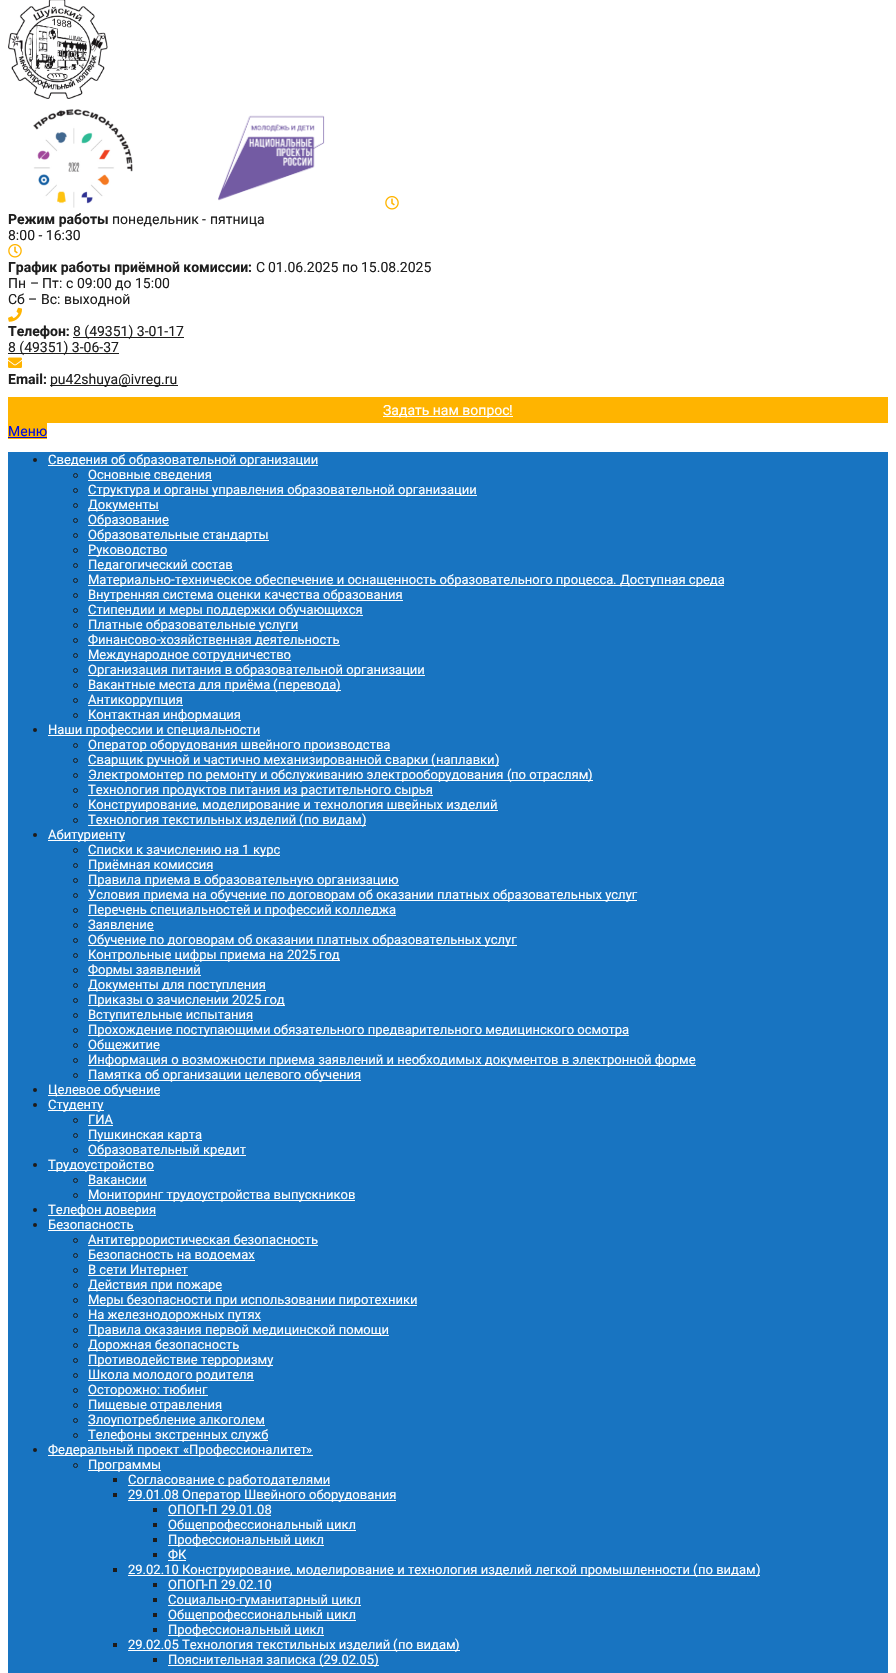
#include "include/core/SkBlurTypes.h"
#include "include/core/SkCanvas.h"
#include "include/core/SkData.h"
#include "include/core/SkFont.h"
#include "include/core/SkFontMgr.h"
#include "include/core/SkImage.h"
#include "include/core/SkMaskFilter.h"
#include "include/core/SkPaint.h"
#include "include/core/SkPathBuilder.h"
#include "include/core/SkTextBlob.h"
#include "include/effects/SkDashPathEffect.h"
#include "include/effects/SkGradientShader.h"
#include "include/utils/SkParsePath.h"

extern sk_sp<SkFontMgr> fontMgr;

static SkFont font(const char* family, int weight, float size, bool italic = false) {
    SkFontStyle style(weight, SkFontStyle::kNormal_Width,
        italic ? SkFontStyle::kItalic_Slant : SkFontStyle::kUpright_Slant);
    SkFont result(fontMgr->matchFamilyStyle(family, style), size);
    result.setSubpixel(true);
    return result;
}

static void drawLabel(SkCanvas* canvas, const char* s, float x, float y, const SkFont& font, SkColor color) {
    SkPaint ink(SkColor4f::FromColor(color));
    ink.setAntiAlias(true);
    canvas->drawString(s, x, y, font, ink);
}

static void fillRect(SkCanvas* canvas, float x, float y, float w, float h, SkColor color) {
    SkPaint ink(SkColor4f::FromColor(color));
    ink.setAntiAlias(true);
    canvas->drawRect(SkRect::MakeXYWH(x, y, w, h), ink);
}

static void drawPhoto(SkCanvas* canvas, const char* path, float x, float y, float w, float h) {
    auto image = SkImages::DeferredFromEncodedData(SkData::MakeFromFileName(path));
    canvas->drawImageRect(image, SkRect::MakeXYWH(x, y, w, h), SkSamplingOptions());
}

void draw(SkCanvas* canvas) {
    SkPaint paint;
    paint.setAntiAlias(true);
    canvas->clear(0xFFFFFFFF);
    drawPhoto(canvas, "assets/img1.png", 8, 0, 100, 99);
    drawPhoto(canvas, "assets/img2.png", 33, 109, 100, 99);
    drawPhoto(canvas, "assets/img3.png", 218, 115, 107, 86);
    drawPhoto(canvas, "assets/img4.png", 385, 196, 14, 14);
    SkFont font1 = font("Roboto", 700, 14);
    drawLabel(canvas, "Режим работы", 8, 224, font1, 0xFF1E1E1E);
    SkFont font2 = font("Roboto", 400, 14);
    drawLabel(canvas, "понедельник", 112, 224, font2, 0xFF1E1E1E);
    SkFont font3 = font("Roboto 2", 400, 14);
    drawLabel(canvas, "-", 202, 224, font3, 0xFF1E1E1E);
    drawLabel(canvas, "пятница", 210, 224, font2, 0xFF1E1E1E);
    drawLabel(canvas, "8:00 - 16:30", 8, 240, font3, 0xFF1E1E1E);
    drawPhoto(canvas, "assets/img4.png", 8, 244, 14, 14);
    drawLabel(canvas, "График работы приёмной комиссии:", 8, 272, font1, 0xFF1E1E1E);
    drawLabel(canvas, "С", 256, 272, font2, 0xFF1E1E1E);
    drawLabel(canvas, "01.06.2025", 268, 272, font3, 0xFF1E1E1E);
    drawLabel(canvas, "по", 342, 272, font2, 0xFF1E1E1E);
    drawLabel(canvas, "15.08.2025", 361, 272, font3, 0xFF1E1E1E);
    drawLabel(canvas, "Пн", 8, 288, font2, 0xFF1E1E1E);
    drawLabel(canvas, "–", 30, 288, font3, 0xFF1E1E1E);
    drawLabel(canvas, "Пт", 42, 288, font2, 0xFF1E1E1E);
    drawLabel(canvas, ":", 59, 288, font3, 0xFF1E1E1E);
    drawLabel(canvas, "с", 66, 288, font2, 0xFF1E1E1E);
    drawLabel(canvas, "09:00", 77, 288, font3, 0xFF1E1E1E);
    drawLabel(canvas, "до", 115, 288, font2, 0xFF1E1E1E);
    drawLabel(canvas, "15:00", 135, 288, font3, 0xFF1E1E1E);
    drawLabel(canvas, "Сб", 8, 304, font2, 0xFF1E1E1E);
    drawLabel(canvas, "–", 28, 304, font3, 0xFF1E1E1E);
    drawLabel(canvas, "Вс", 41, 304, font2, 0xFF1E1E1E);
    drawLabel(canvas, ":", 57, 304, font3, 0xFF1E1E1E);
    drawLabel(canvas, "выходной", 64, 304, font2, 0xFF1E1E1E);
    drawPhoto(canvas, "assets/img5.png", 8, 307, 14, 15);
    drawLabel(canvas, "Телефон:", 8, 336, font1, 0xFF1E1E1E);
    fillRect(canvas, 73, 337, 111, 1, 0xFF1E1E1E);
    drawLabel(canvas, "8 (49351) 3-01-17", 73, 336, font3, 0xFF1E1E1E);
    fillRect(canvas, 8, 353, 111, 1, 0xFF1E1E1E);
    drawLabel(canvas, "8 (49351) 3-06-37", 8, 352, font3, 0xFF1E1E1E);
    drawPhoto(canvas, "assets/img6.png", 8, 357, 14, 11);
    drawLabel(canvas, "Email:", 8, 384, font1, 0xFF1E1E1E);
    fillRect(canvas, 50, 385, 128, 1, 0xFF1E1E1E);
    drawLabel(canvas, "pu42shuya@ivreg.ru", 50, 384, font3, 0xFF1E1E1E);
    fillRect(canvas, 8, 397, 880, 26, 0xFFFFB400);
    fillRect(canvas, 383, 416, 130, 1, 0xFFFFFFFF);
    drawLabel(canvas, "Задать нам вопрос", 383, 415, font2, 0xFFFFFFFF);
    drawLabel(canvas, "!", 509, 415, font3, 0xFFFFFFFF);
    fillRect(canvas, 8, 423, 39, 16, 0xFFFFB400);
    drawLabel(canvas, "Меню", 8, 436, font2, 0xFF000EDB);
    fillRect(canvas, 8, 437, 39, 1, 0xFF000EDB);
    fillRect(canvas, 8, 452, 880, 1221, 0xFF1874C1);
    paint.setColor(0xFF1E1B1A);
    canvas->drawCircle(35, 460, 2, paint);
    fillRect(canvas, 48, 465, 270, 1, 0xFFFFFFFF);
    SkFont font4 = font("Roboto", 400, 13);
    drawLabel(canvas, "Сведения об образовательной организации", 48, 464, font4, 0xFFFFFFFF);
    paint.setStroke(true);
    paint.setStrokeWidth(1);
    canvas->drawCircle(75.5f, 475.5f, 2, paint);
    fillRect(canvas, 88, 480, 124, 1, 0xFFFFFFFF);
    drawLabel(canvas, "Основные сведения", 88, 479, font4, 0xFFFFFFFF);
    canvas->drawCircle(75.5f, 490.5f, 2, paint);
    fillRect(canvas, 88, 495, 389, 1, 0xFFFFFFFF);
    drawLabel(canvas, "Структура и органы управления образовательной организации", 88, 494, font4, 0xFFFFFFFF);
    canvas->drawCircle(75.5f, 505.5f, 2, paint);
    fillRect(canvas, 88, 510, 71, 1, 0xFFFFFFFF);
    drawLabel(canvas, "Документы", 88, 509, font4, 0xFFFFFFFF);
    canvas->drawCircle(75.5f, 520.5f, 2, paint);
    fillRect(canvas, 88, 525, 81, 1, 0xFFFFFFFF);
    drawLabel(canvas, "Образование", 88, 524, font4, 0xFFFFFFFF);
    canvas->drawCircle(75.5f, 535.5f, 2, paint);
    fillRect(canvas, 88, 540, 181, 1, 0xFFFFFFFF);
    drawLabel(canvas, "Образовательные стандарты", 88, 539, font4, 0xFFFFFFFF);
    canvas->drawCircle(75.5f, 550.5f, 2, paint);
    fillRect(canvas, 88, 555, 79, 1, 0xFFFFFFFF);
    drawLabel(canvas, "Руководство", 88, 554, font4, 0xFFFFFFFF);
    canvas->drawCircle(75.5f, 565.5f, 2, paint);
    fillRect(canvas, 88, 570, 145, 1, 0xFFFFFFFF);
    drawLabel(canvas, "Педагогический состав", 88, 569, font4, 0xFFFFFFFF);
    canvas->drawCircle(75.5f, 580.5f, 2, paint);
    fillRect(canvas, 88, 585, 636, 1, 0xFFFFFFFF);
    drawLabel(canvas, "Материально", 88, 584, font4, 0xFFFFFFFF);
    SkFont font5 = font("Roboto 2", 400, 13);
    drawLabel(canvas, "-", 171, 584, font5, 0xFFFFFFFF);
    drawLabel(canvas, "техническое обеспечение и оснащенность образовательного процесса", 175, 584, font4, 0xFFFFFFFF);
    drawLabel(canvas, "Доступная среда", 620, 584, font4, 0xFFFFFFFF);
    drawLabel(canvas, ".", 613, 584, font5, 0xFFFFFFFF);
    canvas->drawCircle(75.5f, 595.5f, 2, paint);
    fillRect(canvas, 88, 600, 315, 1, 0xFFFFFFFF);
    drawLabel(canvas, "Внутренняя система оценки качества образования", 88, 599, font4, 0xFFFFFFFF);
    canvas->drawCircle(75.5f, 610.5f, 2, paint);
    fillRect(canvas, 88, 615, 275, 1, 0xFFFFFFFF);
    drawLabel(canvas, "Стипендии и меры поддержки обучающихся", 88, 614, font4, 0xFFFFFFFF);
    canvas->drawCircle(75.5f, 625.5f, 2, paint);
    fillRect(canvas, 88, 630, 210, 1, 0xFFFFFFFF);
    drawLabel(canvas, "Платные образовательные услуги", 88, 629, font4, 0xFFFFFFFF);
    canvas->drawCircle(75.5f, 640.5f, 2, paint);
    drawLabel(canvas, "Финансово", 88, 644, font4, 0xFFFFFFFF);
    drawLabel(canvas, "-", 157, 644, font5, 0xFFFFFFFF);
    fillRect(canvas, 88, 645, 252, 1, 0xFFFFFFFF);
    drawLabel(canvas, "хозяйственная деятельность", 160, 644, font4, 0xFFFFFFFF);
    canvas->drawCircle(75.5f, 655.5f, 2, paint);
    fillRect(canvas, 88, 660, 203, 1, 0xFFFFFFFF);
    drawLabel(canvas, "Международное сотрудничество", 88, 659, font4, 0xFFFFFFFF);
    canvas->drawCircle(75.5f, 670.5f, 2, paint);
    fillRect(canvas, 88, 675, 337, 1, 0xFFFFFFFF);
    drawLabel(canvas, "Организация питания в образовательной организации", 88, 674, font4, 0xFFFFFFFF);
    canvas->drawCircle(75.5f, 685.5f, 2, paint);
    fillRect(canvas, 88, 690, 253, 1, 0xFFFFFFFF);
    drawLabel(canvas, "Вакантные места для приёма", 88, 689, font4, 0xFFFFFFFF);
    drawLabel(canvas, "(", 273, 689, font5, 0xFFFFFFFF);
    drawLabel(canvas, "перевода", 278, 689, font4, 0xFFFFFFFF);
    drawLabel(canvas, ")", 336, 689, font5, 0xFFFFFFFF);
    canvas->drawCircle(75.5f, 700.5f, 2, paint);
    fillRect(canvas, 88, 705, 95, 1, 0xFFFFFFFF);
    drawLabel(canvas, "Антикоррупция", 88, 704, font4, 0xFFFFFFFF);
    canvas->drawCircle(75.5f, 715.5f, 2, paint);
    fillRect(canvas, 88, 720, 153, 1, 0xFFFFFFFF);
    drawLabel(canvas, "Контактная информация", 88, 719, font4, 0xFFFFFFFF);
    paint.setStroke(false);
    canvas->drawCircle(35, 730, 2, paint);
    fillRect(canvas, 48, 735, 212, 1, 0xFFFFFFFF);
    drawLabel(canvas, "Наши профессии и специальности", 48, 734, font4, 0xFFFFFFFF);
    paint.setStroke(true);
    canvas->drawCircle(75.5f, 745.5f, 2, paint);
    fillRect(canvas, 88, 750, 302, 1, 0xFFFFFFFF);
    drawLabel(canvas, "Оператор оборудования швейного производства", 88, 749, font4, 0xFFFFFFFF);
    canvas->drawCircle(75.5f, 760.5f, 2, paint);
    fillRect(canvas, 88, 765, 411, 1, 0xFFFFFFFF);
    drawLabel(canvas, "Сварщик ручной и частично механизированной сварки", 88, 764, font4, 0xFFFFFFFF);
    drawLabel(canvas, "(", 431, 764, font5, 0xFFFFFFFF);
    drawLabel(canvas, "наплавки", 436, 764, font4, 0xFFFFFFFF);
    drawLabel(canvas, ")", 495, 764, font5, 0xFFFFFFFF);
    canvas->drawCircle(75.5f, 775.5f, 2, paint);
    fillRect(canvas, 88, 780, 505, 1, 0xFFFFFFFF);
    drawLabel(canvas, "Электромонтер по ремонту и обслуживанию электрооборудования", 88, 779, font4, 0xFFFFFFFF);
    drawLabel(canvas, "(", 507, 779, font5, 0xFFFFFFFF);
    drawLabel(canvas, "по отраслям", 511, 779, font4, 0xFFFFFFFF);
    drawLabel(canvas, ")", 588, 779, font5, 0xFFFFFFFF);
    canvas->drawCircle(75.5f, 790.5f, 2, paint);
    fillRect(canvas, 88, 795, 345, 1, 0xFFFFFFFF);
    drawLabel(canvas, "Технология продуктов питания из растительного сырья", 88, 794, font4, 0xFFFFFFFF);
    canvas->drawCircle(75.5f, 805.5f, 2, paint);
    fillRect(canvas, 88, 810, 410, 1, 0xFFFFFFFF);
    drawLabel(canvas, "Конструирование", 88, 809, font4, 0xFFFFFFFF);
    drawLabel(canvas, "моделирование и технология швейных изделий", 202, 809, font4, 0xFFFFFFFF);
    drawLabel(canvas, ",", 196, 809, font5, 0xFFFFFFFF);
    canvas->drawCircle(75.5f, 820.5f, 2, paint);
    fillRect(canvas, 88, 825, 278, 1, 0xFFFFFFFF);
    drawLabel(canvas, "Технология текстильных изделий", 88, 824, font4, 0xFFFFFFFF);
    drawLabel(canvas, "(", 299, 824, font5, 0xFFFFFFFF);
    drawLabel(canvas, "по видам", 304, 824, font4, 0xFFFFFFFF);
    drawLabel(canvas, ")", 362, 824, font5, 0xFFFFFFFF);
    paint.setStroke(false);
    canvas->drawCircle(35, 835, 2, paint);
    fillRect(canvas, 48, 840, 77, 1, 0xFFFFFFFF);
    drawLabel(canvas, "Абитуриенту", 48, 839, font4, 0xFFFFFFFF);
    paint.setStroke(true);
    canvas->drawCircle(75.5f, 850.5f, 2, paint);
    drawLabel(canvas, "Списки к зачислению на", 88, 854, font4, 0xFFFFFFFF);
    drawLabel(canvas, "1", 242, 854, font5, 0xFFFFFFFF);
    fillRect(canvas, 88, 855, 192, 1, 0xFFFFFFFF);
    drawLabel(canvas, "курс", 253, 854, font4, 0xFFFFFFFF);
    canvas->drawCircle(75.5f, 865.5f, 2, paint);
    fillRect(canvas, 88, 870, 125, 1, 0xFFFFFFFF);
    drawLabel(canvas, "Приёмная комиссия", 88, 869, font4, 0xFFFFFFFF);
    canvas->drawCircle(75.5f, 880.5f, 2, paint);
    fillRect(canvas, 88, 885, 311, 1, 0xFFFFFFFF);
    drawLabel(canvas, "Правила приема в образовательную организацию", 88, 884, font4, 0xFFFFFFFF);
    canvas->drawCircle(75.5f, 895.5f, 2, paint);
    fillRect(canvas, 88, 900, 549, 1, 0xFFFFFFFF);
    drawLabel(canvas, "Условия приема на обучение по договорам об оказании платных образовательных услуг", 88, 899, font4, 0xFFFFFFFF);
    canvas->drawCircle(75.5f, 910.5f, 2, paint);
    fillRect(canvas, 88, 915, 308, 1, 0xFFFFFFFF);
    drawLabel(canvas, "Перечень специальностей и профессий колледжа", 88, 914, font4, 0xFFFFFFFF);
    canvas->drawCircle(75.5f, 925.5f, 2, paint);
    drawLabel(canvas, "Заявление", 88, 929, font4, 0xFFFFFFFF);
    fillRect(canvas, 88, 930, 66, 1, 0xFFFFFFFF);
    canvas->drawCircle(75.5f, 940.5f, 2, paint);
    fillRect(canvas, 88, 945, 429, 1, 0xFFFFFFFF);
    drawLabel(canvas, "Обучение по договорам об оказании платных образовательных услуг", 88, 944, font4, 0xFFFFFFFF);
    canvas->drawCircle(75.5f, 955.5f, 2, paint);
    fillRect(canvas, 88, 960, 252, 1, 0xFFFFFFFF);
    drawLabel(canvas, "Контрольные цифры приема на", 88, 959, font4, 0xFFFFFFFF);
    drawLabel(canvas, "2025", 287, 959, font5, 0xFFFFFFFF);
    drawLabel(canvas, "год", 319, 959, font4, 0xFFFFFFFF);
    canvas->drawCircle(75.5f, 970.5f, 2, paint);
    fillRect(canvas, 88, 975, 113, 1, 0xFFFFFFFF);
    drawLabel(canvas, "Формы заявлений", 88, 974, font4, 0xFFFFFFFF);
    canvas->drawCircle(75.5f, 985.5f, 2, paint);
    fillRect(canvas, 88, 990, 178, 1, 0xFFFFFFFF);
    drawLabel(canvas, "Документы для поступления", 88, 989, font4, 0xFFFFFFFF);
    canvas->drawCircle(75.5f, 1000.5f, 2, paint);
    fillRect(canvas, 88, 1005, 197, 1, 0xFFFFFFFF);
    drawLabel(canvas, "Приказы о зачислении", 88, 1004, font4, 0xFFFFFFFF);
    drawLabel(canvas, "2025", 232, 1004, font5, 0xFFFFFFFF);
    drawLabel(canvas, "год", 264, 1004, font4, 0xFFFFFFFF);
    canvas->drawCircle(75.5f, 1015.5f, 2, paint);
    fillRect(canvas, 88, 1020, 165, 1, 0xFFFFFFFF);
    drawLabel(canvas, "Вступительные испытания", 88, 1019, font4, 0xFFFFFFFF);
    canvas->drawCircle(75.5f, 1030.5f, 2, paint);
    fillRect(canvas, 88, 1035, 541, 1, 0xFFFFFFFF);
    drawLabel(canvas, "Прохождение поступающими обязательного предварительного медицинского осмотра", 88, 1034, font4, 0xFFFFFFFF);
    canvas->drawCircle(75.5f, 1045.5f, 2, paint);
    fillRect(canvas, 88, 1050, 72, 1, 0xFFFFFFFF);
    drawLabel(canvas, "Общежитие", 88, 1049, font4, 0xFFFFFFFF);
    canvas->drawCircle(75.5f, 1060.5f, 2, paint);
    fillRect(canvas, 88, 1065, 608, 1, 0xFFFFFFFF);
    drawLabel(canvas, "Информация о возможности приема заявлений и необходимых документов в электронной форме", 88, 1064, font4, 0xFFFFFFFF);
    canvas->drawCircle(75.5f, 1075.5f, 2, paint);
    fillRect(canvas, 88, 1080, 273, 1, 0xFFFFFFFF);
    drawLabel(canvas, "Памятка об организации целевого обучения", 88, 1079, font4, 0xFFFFFFFF);
    paint.setStroke(false);
    canvas->drawCircle(35, 1090, 2, paint);
    fillRect(canvas, 48, 1095, 112, 1, 0xFFFFFFFF);
    drawLabel(canvas, "Целевое обучение", 48, 1094, font4, 0xFFFFFFFF);
    canvas->drawCircle(35, 1105, 2, paint);
    fillRect(canvas, 48, 1110, 56, 1, 0xFFFFFFFF);
    drawLabel(canvas, "Студенту", 48, 1109, font4, 0xFFFFFFFF);
    paint.setStroke(true);
    canvas->drawCircle(75.5f, 1120.5f, 2, paint);
    drawLabel(canvas, "ГИА", 88, 1124, font4, 0xFFFFFFFF);
    fillRect(canvas, 88, 1125, 25, 1, 0xFFFFFFFF);
    canvas->drawCircle(75.5f, 1135.5f, 2, paint);
    fillRect(canvas, 88, 1140, 114, 1, 0xFFFFFFFF);
    drawLabel(canvas, "Пушкинская карта", 88, 1139, font4, 0xFFFFFFFF);
    canvas->drawCircle(75.5f, 1150.5f, 2, paint);
    fillRect(canvas, 88, 1155, 158, 1, 0xFFFFFFFF);
    drawLabel(canvas, "Образовательный кредит", 88, 1154, font4, 0xFFFFFFFF);
    paint.setStroke(false);
    canvas->drawCircle(35, 1165, 2, paint);
    fillRect(canvas, 48, 1170, 106, 1, 0xFFFFFFFF);
    drawLabel(canvas, "Трудоустройство", 48, 1169, font4, 0xFFFFFFFF);
    paint.setStroke(true);
    canvas->drawCircle(75.5f, 1180.5f, 2, paint);
    drawLabel(canvas, "Вакансии", 88, 1184, font4, 0xFFFFFFFF);
    fillRect(canvas, 88, 1185, 59, 1, 0xFFFFFFFF);
    canvas->drawCircle(75.5f, 1195.5f, 2, paint);
    fillRect(canvas, 88, 1200, 267, 1, 0xFFFFFFFF);
    drawLabel(canvas, "Мониторинг трудоустройства выпускников", 88, 1199, font4, 0xFFFFFFFF);
    paint.setStroke(false);
    canvas->drawCircle(35, 1210, 2, paint);
    fillRect(canvas, 48, 1215, 108, 1, 0xFFFFFFFF);
    drawLabel(canvas, "Телефон доверия", 48, 1214, font4, 0xFFFFFFFF);
    canvas->drawCircle(35, 1225, 2, paint);
    drawLabel(canvas, "Безопасность", 48, 1229, font4, 0xFFFFFFFF);
    fillRect(canvas, 48, 1230, 86, 1, 0xFFFFFFFF);
    paint.setStroke(true);
    canvas->drawCircle(75.5f, 1240.5f, 2, paint);
    fillRect(canvas, 88, 1245, 230, 1, 0xFFFFFFFF);
    drawLabel(canvas, "Антитеррористическая безопасность", 88, 1244, font4, 0xFFFFFFFF);
    canvas->drawCircle(75.5f, 1255.5f, 2, paint);
    fillRect(canvas, 88, 1260, 167, 1, 0xFFFFFFFF);
    drawLabel(canvas, "Безопасность на водоемах", 88, 1259, font4, 0xFFFFFFFF);
    canvas->drawCircle(75.5f, 1270.5f, 2, paint);
    fillRect(canvas, 88, 1275, 100, 1, 0xFFFFFFFF);
    drawLabel(canvas, "В сети Интернет", 88, 1274, font4, 0xFFFFFFFF);
    canvas->drawCircle(75.5f, 1285.5f, 2, paint);
    fillRect(canvas, 88, 1290, 134, 1, 0xFFFFFFFF);
    drawLabel(canvas, "Действия при пожаре", 88, 1289, font4, 0xFFFFFFFF);
    canvas->drawCircle(75.5f, 1300.5f, 2, paint);
    fillRect(canvas, 88, 1305, 329, 1, 0xFFFFFFFF);
    drawLabel(canvas, "Меры безопасности при использовании пиротехники", 88, 1304, font4, 0xFFFFFFFF);
    canvas->drawCircle(75.5f, 1315.5f, 2, paint);
    fillRect(canvas, 88, 1320, 173, 1, 0xFFFFFFFF);
    drawLabel(canvas, "На железнодорожных путях", 88, 1319, font4, 0xFFFFFFFF);
    canvas->drawCircle(75.5f, 1330.5f, 2, paint);
    fillRect(canvas, 88, 1335, 301, 1, 0xFFFFFFFF);
    drawLabel(canvas, "Правила оказания первой медицинской помощи", 88, 1334, font4, 0xFFFFFFFF);
    canvas->drawCircle(75.5f, 1345.5f, 2, paint);
    fillRect(canvas, 88, 1350, 151, 1, 0xFFFFFFFF);
    drawLabel(canvas, "Дорожная безопасность", 88, 1349, font4, 0xFFFFFFFF);
    canvas->drawCircle(75.5f, 1360.5f, 2, paint);
    fillRect(canvas, 88, 1365, 185, 1, 0xFFFFFFFF);
    drawLabel(canvas, "Противодействие терроризму", 88, 1364, font4, 0xFFFFFFFF);
    canvas->drawCircle(75.5f, 1375.5f, 2, paint);
    fillRect(canvas, 88, 1380, 166, 1, 0xFFFFFFFF);
    drawLabel(canvas, "Школа молодого родителя", 88, 1379, font4, 0xFFFFFFFF);
    canvas->drawCircle(75.5f, 1390.5f, 2, paint);
    fillRect(canvas, 88, 1395, 120, 1, 0xFFFFFFFF);
    drawLabel(canvas, "Осторожно", 88, 1394, font4, 0xFFFFFFFF);
    drawLabel(canvas, ":", 157, 1394, font5, 0xFFFFFFFF);
    drawLabel(canvas, "тюбинг", 163, 1394, font4, 0xFFFFFFFF);
    canvas->drawCircle(75.5f, 1405.5f, 2, paint);
    fillRect(canvas, 88, 1410, 134, 1, 0xFFFFFFFF);
    drawLabel(canvas, "Пищевые отравления", 88, 1409, font4, 0xFFFFFFFF);
    canvas->drawCircle(75.5f, 1420.5f, 2, paint);
    fillRect(canvas, 88, 1425, 177, 1, 0xFFFFFFFF);
    drawLabel(canvas, "Злоупотребление алкоголем", 88, 1424, font4, 0xFFFFFFFF);
    canvas->drawCircle(75.5f, 1435.5f, 2, paint);
    fillRect(canvas, 88, 1440, 180, 1, 0xFFFFFFFF);
    drawLabel(canvas, "Телефоны экстренных служб", 88, 1439, font4, 0xFFFFFFFF);
    paint.setStroke(false);
    canvas->drawCircle(35, 1450, 2, paint);
    fillRect(canvas, 48, 1455, 265, 1, 0xFFFFFFFF);
    drawLabel(canvas, "Федеральный проект", 48, 1454, font4, 0xFFFFFFFF);
    drawLabel(canvas, "«", 183, 1454, font5, 0xFFFFFFFF);
    drawLabel(canvas, "Профессионалитет", 189, 1454, font4, 0xFFFFFFFF);
    drawLabel(canvas, "»", 306, 1454, font5, 0xFFFFFFFF);
    paint.setStroke(true);
    canvas->drawCircle(75.5f, 1465.5f, 2, paint);
    fillRect(canvas, 88, 1470, 73, 1, 0xFFFFFFFF);
    drawLabel(canvas, "Программы", 88, 1469, font4, 0xFFFFFFFF);
    fillRect(canvas, 113, 1478, 4, 4, 0xFF1E1B1A);
    fillRect(canvas, 128, 1485, 202, 1, 0xFFFFFFFF);
    drawLabel(canvas, "Согласование с работодателями", 128, 1484, font4, 0xFFFFFFFF);
    fillRect(canvas, 113, 1493, 4, 4, 0xFF1E1B1A);
    drawLabel(canvas, "29.01.08", 128, 1499, font5, 0xFFFFFFFF);
    fillRect(canvas, 128, 1500, 268, 1, 0xFFFFFFFF);
    drawLabel(canvas, "Оператор Швейного оборудования", 182, 1499, font4, 0xFFFFFFFF);
    fillRect(canvas, 153, 1508, 4, 4, 0xFF1E1B1A);
    drawLabel(canvas, "ОПОП", 168, 1514, font4, 0xFFFFFFFF);
    drawLabel(canvas, "-", 204, 1514, font5, 0xFFFFFFFF);
    fillRect(canvas, 168, 1515, 103, 1, 0xFFFFFFFF);
    drawLabel(canvas, "П", 208, 1514, font4, 0xFFFFFFFF);
    drawLabel(canvas, "29.01.08", 221, 1514, font5, 0xFFFFFFFF);
    fillRect(canvas, 153, 1523, 4, 4, 0xFF1E1B1A);
    fillRect(canvas, 168, 1530, 188, 1, 0xFFFFFFFF);
    drawLabel(canvas, "Общепрофессиональный цикл", 168, 1529, font4, 0xFFFFFFFF);
    fillRect(canvas, 153, 1538, 4, 4, 0xFF1E1B1A);
    fillRect(canvas, 168, 1545, 156, 1, 0xFFFFFFFF);
    drawLabel(canvas, "Профессиональный цикл", 168, 1544, font4, 0xFFFFFFFF);
    fillRect(canvas, 153, 1553, 4, 4, 0xFF1E1B1A);
    drawLabel(canvas, "ФК", 168, 1559, font4, 0xFFFFFFFF);
    fillRect(canvas, 168, 1560, 18, 1, 0xFFFFFFFF);
    fillRect(canvas, 113, 1568, 4, 4, 0xFF1E1B1A);
    drawLabel(canvas, "29.02.10", 128, 1574, font5, 0xFFFFFFFF);
    fillRect(canvas, 128, 1575, 632, 1, 0xFFFFFFFF);
    drawLabel(canvas, "Конструирование", 182, 1574, font4, 0xFFFFFFFF);
    drawLabel(canvas, "моделирование и технология изделий легкой промышленности", 296, 1574, font4, 0xFFFFFFFF);
    drawLabel(canvas, "(", 693, 1574, font5, 0xFFFFFFFF);
    drawLabel(canvas, "по видам", 698, 1574, font4, 0xFFFFFFFF);
    drawLabel(canvas, ")", 756, 1574, font5, 0xFFFFFFFF);
    drawLabel(canvas, ",", 290, 1574, font5, 0xFFFFFFFF);
    fillRect(canvas, 153, 1583, 4, 4, 0xFF1E1B1A);
    drawLabel(canvas, "ОПОП", 168, 1589, font4, 0xFFFFFFFF);
    drawLabel(canvas, "-", 204, 1589, font5, 0xFFFFFFFF);
    fillRect(canvas, 168, 1590, 103, 1, 0xFFFFFFFF);
    drawLabel(canvas, "П", 208, 1589, font4, 0xFFFFFFFF);
    drawLabel(canvas, "29.02.10", 221, 1589, font5, 0xFFFFFFFF);
    fillRect(canvas, 153, 1598, 4, 4, 0xFF1E1B1A);
    fillRect(canvas, 168, 1605, 193, 1, 0xFFFFFFFF);
    drawLabel(canvas, "Социально", 168, 1604, font4, 0xFFFFFFFF);
    drawLabel(canvas, "-", 236, 1604, font5, 0xFFFFFFFF);
    drawLabel(canvas, "гуманитарный цикл", 239, 1604, font4, 0xFFFFFFFF);
    fillRect(canvas, 153, 1613, 4, 4, 0xFF1E1B1A);
    fillRect(canvas, 168, 1620, 188, 1, 0xFFFFFFFF);
    drawLabel(canvas, "Общепрофессиональный цикл", 168, 1619, font4, 0xFFFFFFFF);
    fillRect(canvas, 153, 1628, 4, 4, 0xFF1E1B1A);
    fillRect(canvas, 168, 1635, 156, 1, 0xFFFFFFFF);
    drawLabel(canvas, "Профессиональный цикл", 168, 1634, font4, 0xFFFFFFFF);
    fillRect(canvas, 113, 1643, 4, 4, 0xFF1E1B1A);
    drawLabel(canvas, "29.02.05", 128, 1649, font5, 0xFFFFFFFF);
    fillRect(canvas, 128, 1650, 332, 1, 0xFFFFFFFF);
    drawLabel(canvas, "Технология текстильных изделий", 182, 1649, font4, 0xFFFFFFFF);
    drawLabel(canvas, "(", 393, 1649, font5, 0xFFFFFFFF);
    drawLabel(canvas, "по видам", 398, 1649, font4, 0xFFFFFFFF);
    drawLabel(canvas, ")", 455, 1649, font5, 0xFFFFFFFF);
    fillRect(canvas, 153, 1658, 4, 4, 0xFF1E1B1A);
    drawLabel(canvas, "Пояснительная записка", 168, 1664, font4, 0xFFFFFFFF);
    fillRect(canvas, 168, 1665, 211, 1, 0xFFFFFFFF);
    drawLabel(canvas, "(29.02.05)", 319, 1664, font5, 0xFFFFFFFF);
}
